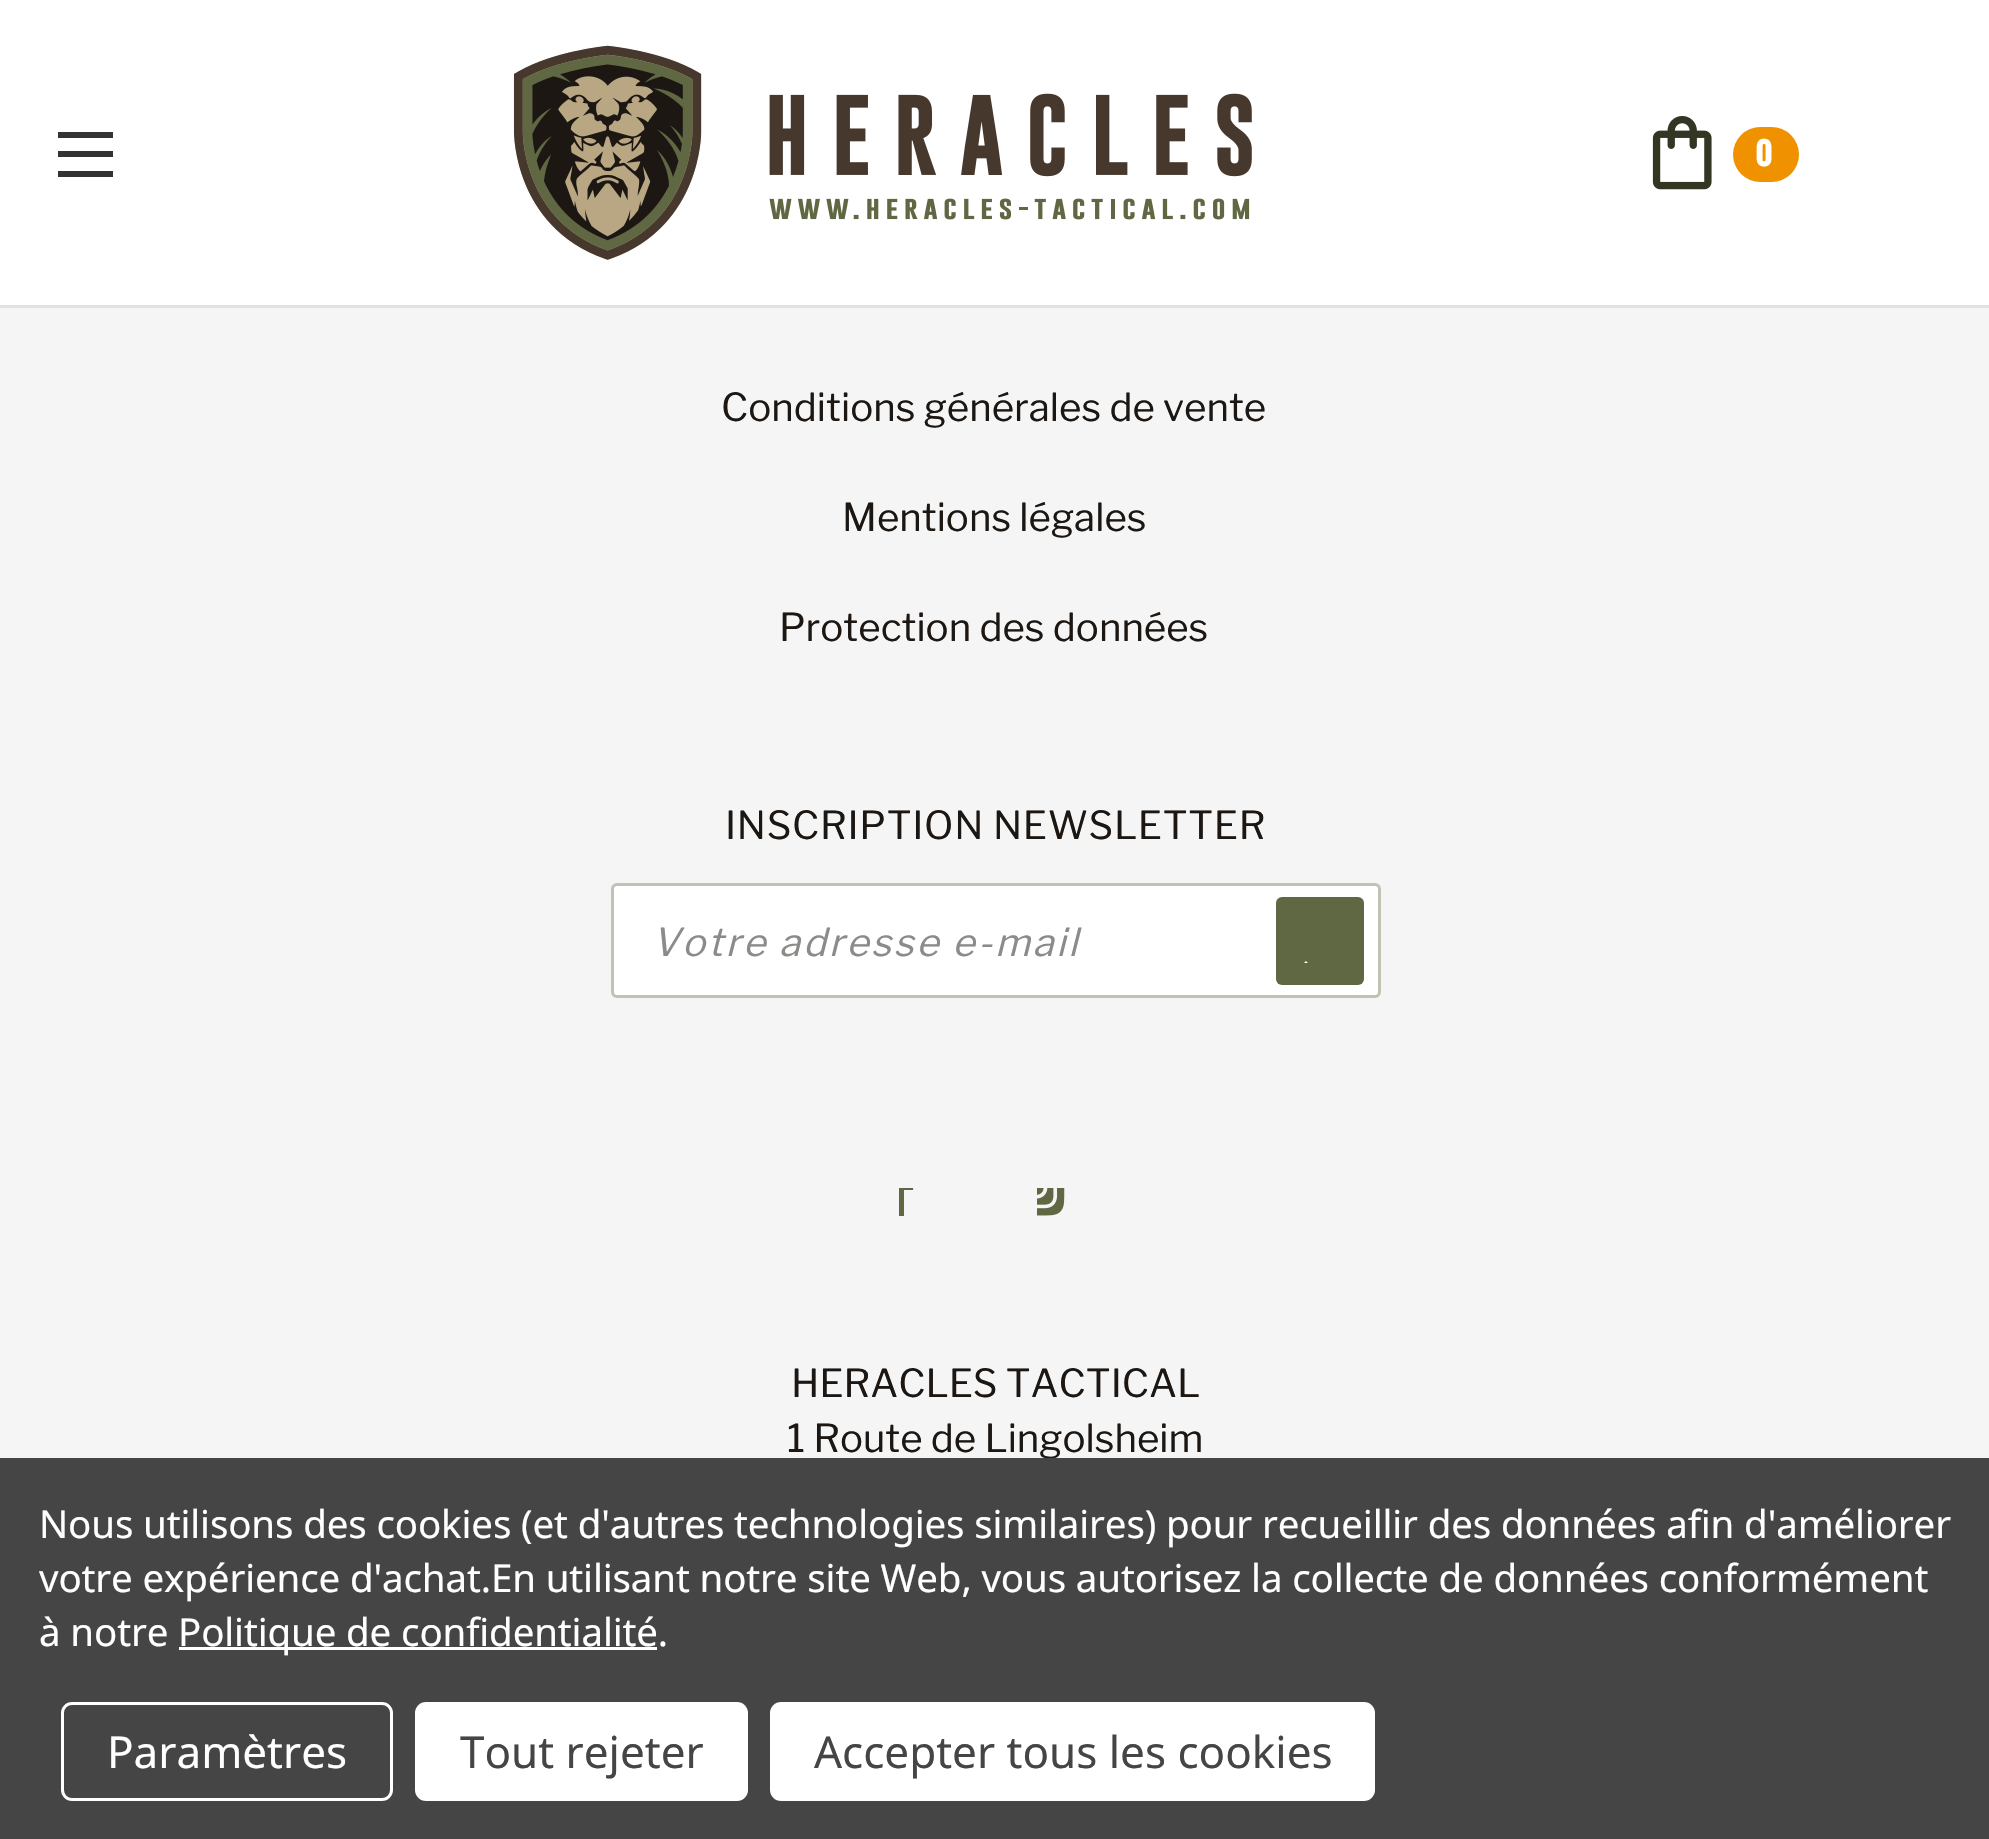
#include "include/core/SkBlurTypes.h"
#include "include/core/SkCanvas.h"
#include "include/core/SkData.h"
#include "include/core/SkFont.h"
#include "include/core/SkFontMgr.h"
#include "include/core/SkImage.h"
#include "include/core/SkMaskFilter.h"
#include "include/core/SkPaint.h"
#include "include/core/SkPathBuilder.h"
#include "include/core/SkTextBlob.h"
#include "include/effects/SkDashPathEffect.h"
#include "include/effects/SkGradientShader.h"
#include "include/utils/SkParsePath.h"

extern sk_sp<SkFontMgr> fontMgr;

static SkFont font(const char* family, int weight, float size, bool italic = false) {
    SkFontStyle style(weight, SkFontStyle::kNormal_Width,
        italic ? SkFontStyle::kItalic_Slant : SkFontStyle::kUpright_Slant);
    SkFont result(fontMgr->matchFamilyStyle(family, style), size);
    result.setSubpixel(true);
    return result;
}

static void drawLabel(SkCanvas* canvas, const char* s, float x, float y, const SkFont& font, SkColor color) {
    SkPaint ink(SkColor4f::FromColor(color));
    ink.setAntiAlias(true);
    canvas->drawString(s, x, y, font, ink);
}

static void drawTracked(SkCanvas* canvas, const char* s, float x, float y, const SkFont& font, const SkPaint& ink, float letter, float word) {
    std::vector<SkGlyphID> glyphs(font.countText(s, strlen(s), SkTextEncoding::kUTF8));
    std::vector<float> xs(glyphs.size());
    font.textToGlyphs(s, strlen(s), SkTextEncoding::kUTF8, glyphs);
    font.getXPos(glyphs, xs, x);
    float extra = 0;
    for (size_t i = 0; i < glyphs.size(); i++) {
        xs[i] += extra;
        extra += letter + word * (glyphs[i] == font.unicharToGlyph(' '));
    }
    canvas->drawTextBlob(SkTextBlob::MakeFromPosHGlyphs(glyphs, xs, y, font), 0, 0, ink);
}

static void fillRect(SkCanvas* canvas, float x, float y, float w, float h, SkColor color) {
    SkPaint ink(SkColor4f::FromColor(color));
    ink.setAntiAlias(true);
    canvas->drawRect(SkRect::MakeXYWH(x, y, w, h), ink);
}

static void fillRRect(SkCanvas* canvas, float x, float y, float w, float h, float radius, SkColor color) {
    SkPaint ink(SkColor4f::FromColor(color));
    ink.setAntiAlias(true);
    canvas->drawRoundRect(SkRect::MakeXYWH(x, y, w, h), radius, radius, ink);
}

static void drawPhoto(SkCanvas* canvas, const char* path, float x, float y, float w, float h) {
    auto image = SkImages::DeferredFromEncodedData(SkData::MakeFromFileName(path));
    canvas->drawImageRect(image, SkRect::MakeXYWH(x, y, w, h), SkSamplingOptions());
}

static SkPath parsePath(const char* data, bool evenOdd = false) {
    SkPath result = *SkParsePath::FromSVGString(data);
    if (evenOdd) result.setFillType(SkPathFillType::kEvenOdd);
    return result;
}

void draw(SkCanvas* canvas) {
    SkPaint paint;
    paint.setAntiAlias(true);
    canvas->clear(0xFFF5F5F5);
    fillRect(canvas, 0, 0, 1989, 305, 0xFFFFFFFF);
    fillRect(canvas, 0, 305, 1989, 3, 0xFFE1E1E1);
    fillRect(canvas, 58, 151, 55, 6, 0xFF333333);
    fillRect(canvas, 58, 132, 55, 6, 0xFF333333);
    fillRect(canvas, 58, 171, 55, 6, 0xFF333333);
    drawPhoto(canvas, "assets/img1.png", 513, 45, 739, 216);
    drawPhoto(canvas, "assets/img2.png", 1652, 116, 60, 74);
    fillRRect(canvas, 1733, 127, 66, 55, 27.5f, 0xFFF09100);
    SkFont font1 = font("Oswald", 700, 33);
    drawLabel(canvas, "0", 1755, 166, font1, 0xFFFFFFFF);
    SkFont font2 = font("Libre Franklin", 400, 38.5f);
    drawLabel(canvas, "Conditions générales de vente", 721, 421, font2, 0xFF1C1713);
    drawLabel(canvas, "Mentions légales", 842, 531, font2, 0xFF1C1713);
    drawLabel(canvas, "Protection des données", 779, 641, font2, 0xFF1C1713);
    paint.setColor(0xFF1C1713);
    drawTracked(canvas, "INSCRIPTION NEWSLETTER", 725, 839, font2, paint, 0.7f, 0);
    paint.setColor(0xFFFFFFFF);
    canvas->drawRoundRect(SkRect::MakeXYWH(612.5f, 884.5f, 767, 112), 4.5f, 4.5f, paint);
    paint.setStroke(true);
    paint.setStrokeWidth(3);
    paint.setColor(0xFFBFC3B4);
    canvas->drawRoundRect(SkRect::MakeXYWH(612.5f, 884.5f, 767, 112), 4.5f, 4.5f, paint);
    SkFont font3 = font("Libre Franklin", 400, 38.5f, true);
    paint.setStroke(false);
    paint.setColor(0xFF8D8B89);
    drawTracked(canvas, "Votre adresse e-mail", 652, 956, font3, paint, 2.75f, 0);
    fillRRect(canvas, 1276, 897, 88, 88, 6, 0xFF606843);
    canvas->save();
    canvas->clipRect(SkRect::MakeXYWH(1298, 919, 44, 44));
    paint.setColor(0xFFFFFFFF);
    canvas->drawPath(parsePath("M1326 982L1364 944V958L1336 985H1316L1299 968L1306 961Z"), paint);
    canvas->restore();
    canvas->save();
    canvas->clipRect(SkRect::MakeXYWH(899, 1188, 55, 55));
    paint.setColor(0xFF606843);
    canvas->drawPath(parsePath("M909 1170H914V1161C906 1160 896 1160 894 1170V1181H886V1190H894V1216H904V1190H913L914 1181H904C904 1176 903 1170 909 1170Z"), paint);
    canvas->restore();
    drawPhoto(canvas, "assets/img3.png", 1037, 1188, 28, 28);
    drawLabel(canvas, "HERACLES TACTICAL", 791, 1397, font2, 0xFF1C1713);
    drawLabel(canvas, "1 Route de Lingolsheim", 787, 1452, font2, 0xFF1C1713);
    fillRect(canvas, 0, 1458, 1989, 381, 0xFF454545);
    SkFont font4 = font("Noto Sans", 400, 38.5f);
    paint.setColor(0xFFFFFFFF);
    drawTracked(canvas, "Nous utilisons des cookies (et d'autres technologies similaires) pour recueillir des données afin d'améliorer", 39, 1538, font4, paint, -0.14f, 0);
    drawTracked(canvas, "votre expérience d'achat.En utilisant notre site Web, vous autorisez la collecte de données conformément", 39, 1592, font4, paint, -0.14f, 0);
    drawTracked(canvas, "à notre", 39, 1646, font4, paint, -0.14f, 0);
    fillRect(canvas, 179, 1647, 478, 3, 0xFFFFFFFF);
    drawTracked(canvas, "Politique de confidentialité.", 178, 1646, font4, paint, -0.14f, 0);
    paint.setStroke(true);
    canvas->drawRoundRect(SkRect::MakeXYWH(62.5f, 1703.5f, 329, 96), 9.5f, 9.5f, paint);
    SkFont font5 = font("Noto Sans", 400, 44);
    drawLabel(canvas, "Paramètres", 107, 1768, font5, 0xFFFFFFFF);
    fillRRect(canvas, 415, 1702, 333, 99, 11, 0xFFFFFFFF);
    drawLabel(canvas, "Tout rejeter", 460, 1768, font5, 0xFF454545);
    fillRRect(canvas, 770, 1702, 605, 99, 11, 0xFFFFFFFF);
    drawLabel(canvas, "Accepter tous les cookies", 814, 1768, font5, 0xFF454545);
}
